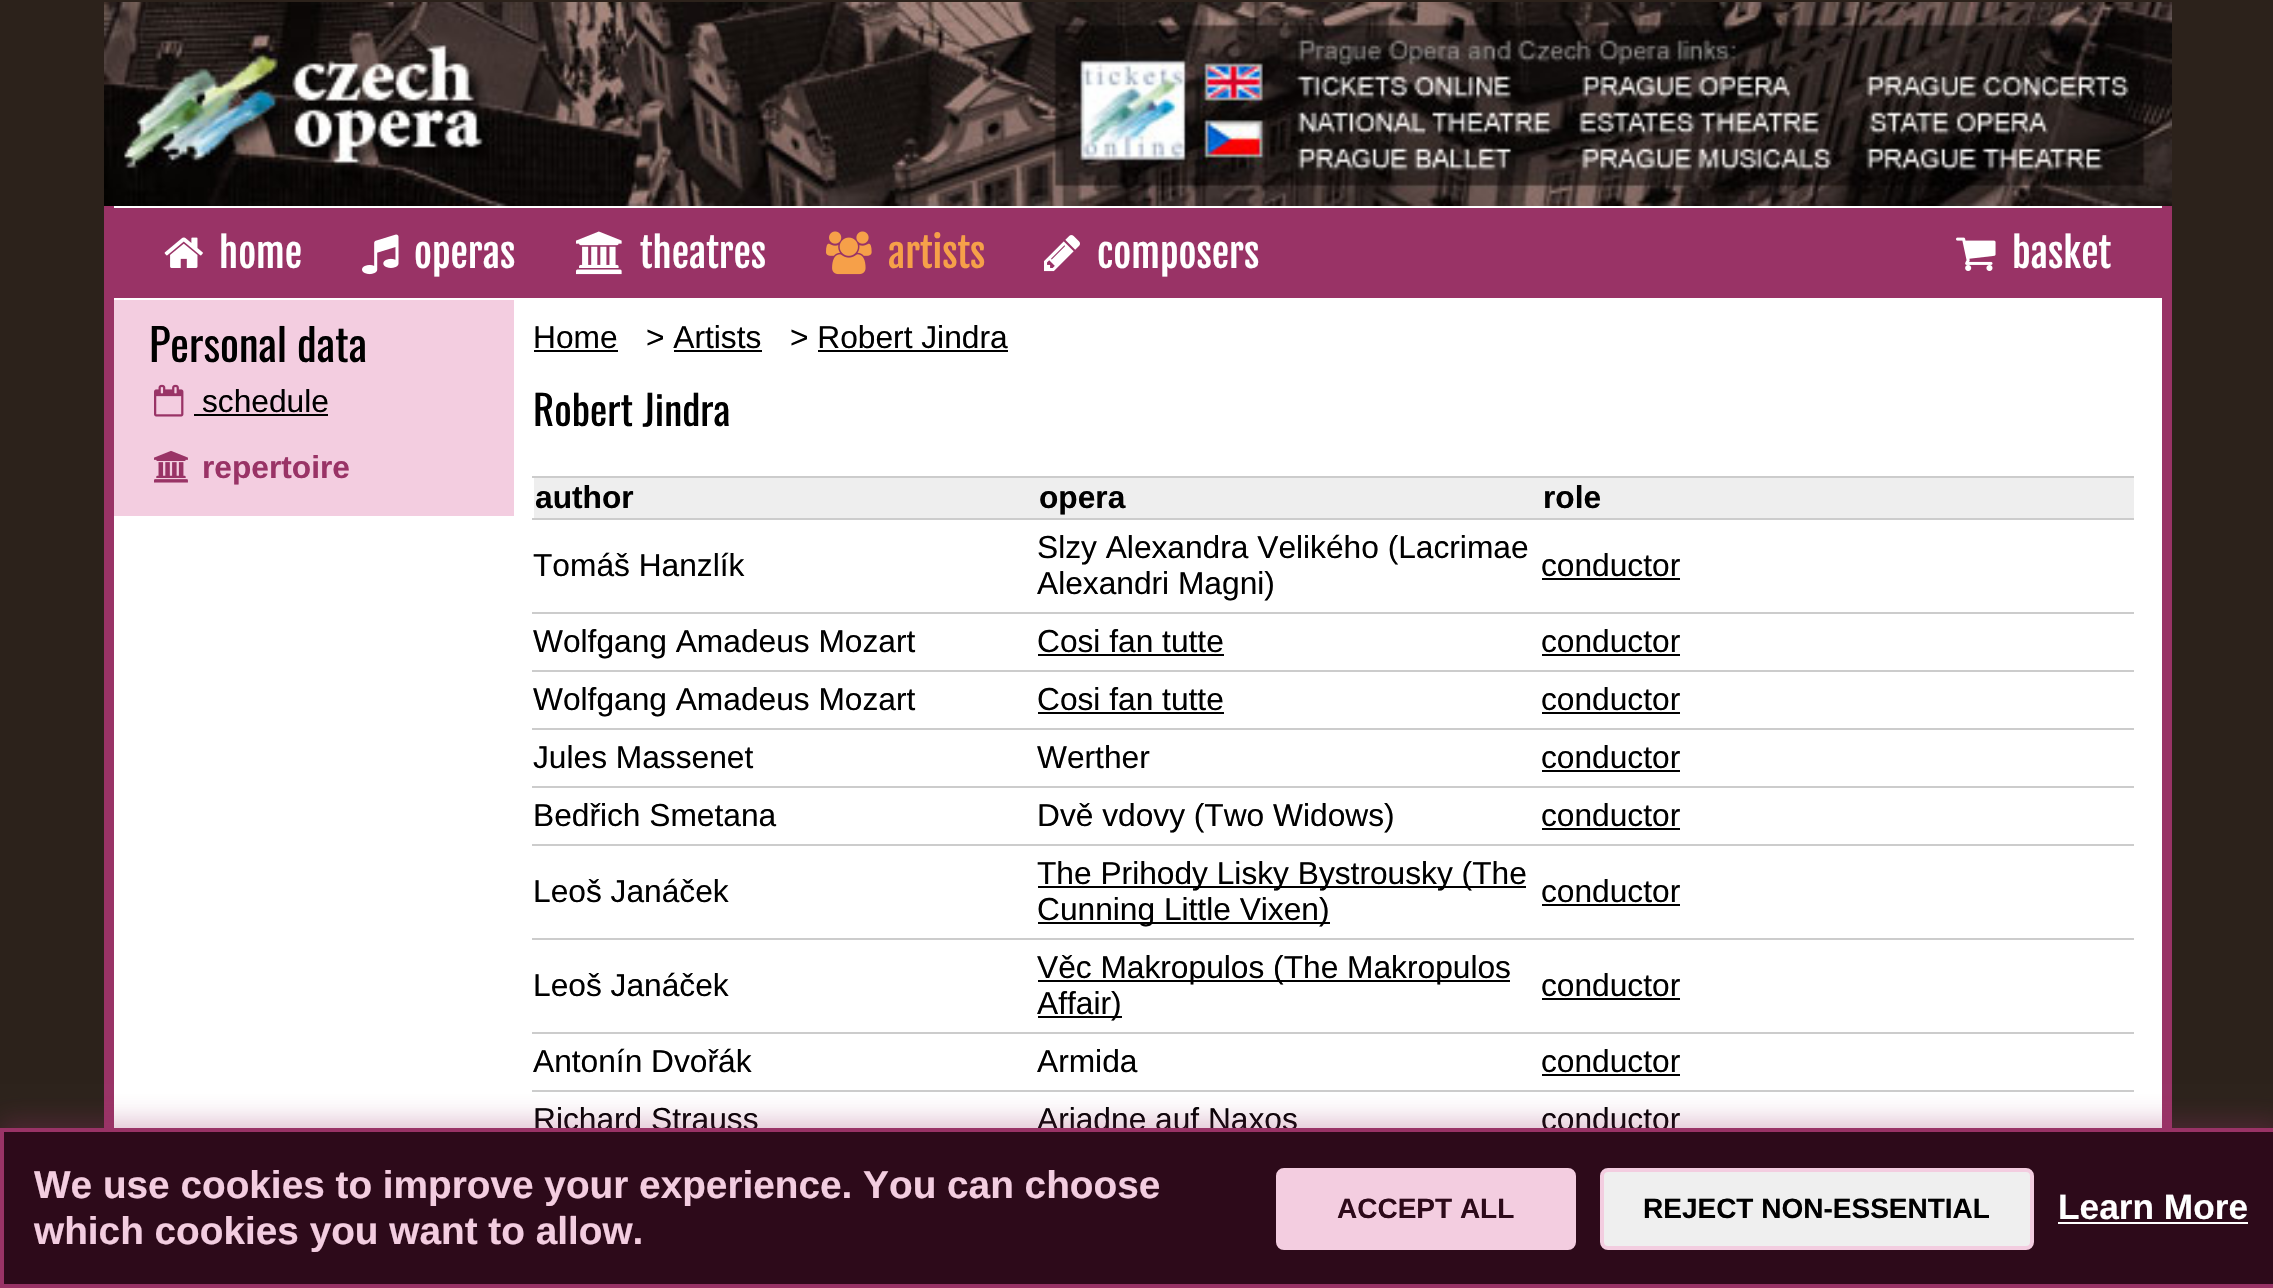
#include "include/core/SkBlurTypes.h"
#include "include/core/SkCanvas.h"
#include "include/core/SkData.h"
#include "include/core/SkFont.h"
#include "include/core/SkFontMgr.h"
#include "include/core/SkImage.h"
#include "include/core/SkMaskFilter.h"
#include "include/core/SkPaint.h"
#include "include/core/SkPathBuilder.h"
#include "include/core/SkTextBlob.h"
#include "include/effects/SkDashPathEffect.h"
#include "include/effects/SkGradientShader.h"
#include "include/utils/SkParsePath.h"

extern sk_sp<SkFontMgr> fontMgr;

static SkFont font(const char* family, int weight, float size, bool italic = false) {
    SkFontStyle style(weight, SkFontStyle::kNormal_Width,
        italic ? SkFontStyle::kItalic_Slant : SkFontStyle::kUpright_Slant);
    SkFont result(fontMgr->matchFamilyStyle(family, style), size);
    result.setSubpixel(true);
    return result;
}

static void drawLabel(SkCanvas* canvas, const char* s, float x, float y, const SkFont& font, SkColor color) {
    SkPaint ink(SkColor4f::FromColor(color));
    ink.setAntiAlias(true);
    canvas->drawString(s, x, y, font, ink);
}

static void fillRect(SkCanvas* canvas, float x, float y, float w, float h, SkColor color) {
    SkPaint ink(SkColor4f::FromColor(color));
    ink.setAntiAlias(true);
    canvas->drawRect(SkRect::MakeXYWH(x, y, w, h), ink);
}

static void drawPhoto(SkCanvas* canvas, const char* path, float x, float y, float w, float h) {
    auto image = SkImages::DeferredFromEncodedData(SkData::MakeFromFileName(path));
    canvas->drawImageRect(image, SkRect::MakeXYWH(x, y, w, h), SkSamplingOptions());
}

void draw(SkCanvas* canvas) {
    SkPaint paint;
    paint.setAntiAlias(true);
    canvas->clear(0xFF2C221B);
    drawPhoto(canvas, "assets/img1.png", 104, 2, 2068, 204);
    fillRect(canvas, 114, 298, 2048, 830, 0xFFFFFFFF);
    fillRect(canvas, 2162, 206, 10, 922, 0xFF993366);
    fillRect(canvas, 104, 206, 10, 922, 0xFF993366);
    fillRect(canvas, 114, 208, 2048, 90, 0xFF993366);
    fillRect(canvas, 114, 206, 2048, 2, 0xFFFFFFFF);
    drawPhoto(canvas, "assets/img2.png", 164, 237, 39, 31);
    SkFont font1 = font("Fjalla One", 400, 38.75f);
    drawLabel(canvas, "home", 219, 268, font1, 0xFFFFFFFF);
    drawPhoto(canvas, "assets/img3.png", 362, 234, 37, 41);
    drawLabel(canvas, "operas", 414, 268, font1, 0xFFFFFFFF);
    drawPhoto(canvas, "assets/img4.png", 576, 231, 46, 44);
    drawLabel(canvas, "theatres", 640, 268, font1, 0xFFFFFFFF);
    drawPhoto(canvas, "assets/img5.png", 826, 231, 46, 44);
    drawLabel(canvas, "artists", 888, 268, font1, 0xFFF6A049);
    drawPhoto(canvas, "assets/img6.png", 1044, 235, 36, 37);
    drawLabel(canvas, "composers", 1097, 268, font1, 0xFFFFFFFF);
    drawPhoto(canvas, "assets/img7.png", 1956, 237, 40, 34);
    drawLabel(canvas, "basket", 2012, 268, font1, 0xFFFFFFFF);
    fillRect(canvas, 114, 300, 400, 216, 0xFFF3CDE0);
    SkFont font2 = font("Oswald", 400, 44.5f);
    drawLabel(canvas, "Personal data", 149, 362, font2, 0xFF000000);
    drawPhoto(canvas, "assets/img8.png", 154, 384, 30, 33);
    SkFont font3 = font("Liberation Sans", 400, 31.7f);
    drawLabel(canvas, "schedule", 202, 412, font3, 0xFF000000);
    fillRect(canvas, 194, 414, 134, 2, 0xFF000000);
    drawPhoto(canvas, "assets/img9.png", 154, 450, 34, 33);
    SkFont font4 = font("Liberation Sans", 700, 31.7f);
    drawLabel(canvas, "repertoire", 202, 478, font4, 0xFF993366);
    drawLabel(canvas, "Home", 533, 348, font3, 0xFF000000);
    fillRect(canvas, 534, 350, 84, 2, 0xFF000000);
    drawLabel(canvas, "> Artists", 646, 348, font3, 0xFF000000);
    drawLabel(canvas, "> Robert Jindra", 790, 348, font3, 0xFF000000);
    fillRect(canvas, 674, 350, 88, 2, 0xFF000000);
    fillRect(canvas, 818, 350, 190, 2, 0xFF000000);
    SkFont font5 = font("Oswald", 400, 41);
    drawLabel(canvas, "Robert Jindra", 533, 426, font5, 0xFF000000);
    fillRect(canvas, 532, 518, 1602, 2, 0xFFCCCCCC);
    fillRect(canvas, 534, 478, 1600, 40, 0xFFEEEEEE);
    drawLabel(canvas, "author", 535, 508, font4, 0xFF000000);
    drawLabel(canvas, "opera", 1039, 508, font4, 0xFF000000);
    fillRect(canvas, 532, 476, 1602, 2, 0xFFCCCCCC);
    drawLabel(canvas, "role", 1543, 508, font4, 0xFF000000);
    fillRect(canvas, 532, 612, 1602, 2, 0xFFCCCCCC);
    drawLabel(canvas, "Tomáš Hanzlík", 533, 576, font3, 0xFF000000);
    drawLabel(canvas, "Slzy Alexandra Velikého (Lacrimae", 1037, 558, font3, 0xFF000000);
    drawLabel(canvas, "Alexandri Magni)", 1037, 594, font3, 0xFF000000);
    drawLabel(canvas, "conductor", 1541, 576, font3, 0xFF000000);
    fillRect(canvas, 1542, 578, 138, 2, 0xFF000000);
    fillRect(canvas, 532, 670, 1602, 2, 0xFFCCCCCC);
    drawLabel(canvas, "Wolfgang Amadeus Mozart", 533, 652, font3, 0xFF000000);
    drawLabel(canvas, "Cosi fan tutte", 1037, 652, font3, 0xFF000000);
    fillRect(canvas, 1038, 654, 186, 2, 0xFF000000);
    drawLabel(canvas, "conductor", 1541, 652, font3, 0xFF000000);
    fillRect(canvas, 1542, 654, 138, 2, 0xFF000000);
    fillRect(canvas, 532, 728, 1602, 2, 0xFFCCCCCC);
    drawLabel(canvas, "Wolfgang Amadeus Mozart", 533, 710, font3, 0xFF000000);
    drawLabel(canvas, "Cosi fan tutte", 1037, 710, font3, 0xFF000000);
    fillRect(canvas, 1038, 712, 186, 2, 0xFF000000);
    drawLabel(canvas, "conductor", 1541, 710, font3, 0xFF000000);
    fillRect(canvas, 1542, 712, 138, 2, 0xFF000000);
    fillRect(canvas, 532, 786, 1602, 2, 0xFFCCCCCC);
    drawLabel(canvas, "Jules Massenet", 533, 768, font3, 0xFF000000);
    drawLabel(canvas, "Werther", 1037, 768, font3, 0xFF000000);
    drawLabel(canvas, "conductor", 1541, 768, font3, 0xFF000000);
    fillRect(canvas, 1542, 770, 138, 2, 0xFF000000);
    fillRect(canvas, 532, 844, 1602, 2, 0xFFCCCCCC);
    drawLabel(canvas, "Bedřich Smetana", 533, 826, font3, 0xFF000000);
    drawLabel(canvas, "Dvě vdovy (Two Widows)", 1037, 826, font3, 0xFF000000);
    drawLabel(canvas, "conductor", 1541, 826, font3, 0xFF000000);
    fillRect(canvas, 1542, 828, 138, 2, 0xFF000000);
    fillRect(canvas, 532, 938, 1602, 2, 0xFFCCCCCC);
    drawLabel(canvas, "Leoš Janáček", 533, 902, font3, 0xFF000000);
    fillRect(canvas, 1038, 886, 488, 2, 0xFF000000);
    drawLabel(canvas, "The Prihody Lisky Bystrousky (The", 1037, 884, font3, 0xFF000000);
    fillRect(canvas, 1038, 922, 292, 2, 0xFF000000);
    drawLabel(canvas, "Cunning Little Vixen)", 1037, 920, font3, 0xFF000000);
    drawLabel(canvas, "conductor", 1541, 902, font3, 0xFF000000);
    fillRect(canvas, 1542, 904, 138, 2, 0xFF000000);
    fillRect(canvas, 532, 1032, 1602, 2, 0xFFCCCCCC);
    drawLabel(canvas, "Leoš Janáček", 533, 996, font3, 0xFF000000);
    fillRect(canvas, 1038, 980, 472, 2, 0xFF000000);
    drawLabel(canvas, "Věc Makropulos (The Makropulos", 1037, 978, font3, 0xFF000000);
    fillRect(canvas, 1038, 1016, 84, 2, 0xFF000000);
    drawLabel(canvas, "Affair)", 1037, 1014, font3, 0xFF000000);
    drawLabel(canvas, "conductor", 1541, 996, font3, 0xFF000000);
    fillRect(canvas, 1542, 998, 138, 2, 0xFF000000);
    fillRect(canvas, 532, 1090, 1602, 2, 0xFFCCCCCC);
    drawLabel(canvas, "Antonín Dvořák", 533, 1072, font3, 0xFF000000);
    drawLabel(canvas, "Armida", 1037, 1072, font3, 0xFF000000);
    drawLabel(canvas, "conductor", 1541, 1072, font3, 0xFF000000);
    fillRect(canvas, 1542, 1074, 138, 2, 0xFF000000);
    drawLabel(canvas, "Richard Strauss", 533, 1130, font3, 0xFF000000);
    drawLabel(canvas, "Ariadne auf Naxos", 1037, 1130, font3, 0xFF000000);
    drawLabel(canvas, "conductor", 1541, 1130, font3, 0xFF000000);
    paint.setColor(0x4D993366);
    paint.setMaskFilter(SkMaskFilter::MakeBlur(kNormal_SkBlurStyle, 12));
    canvas->drawRect(SkRect::MakeXYWH(0, 1120, 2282, 160), paint);
    paint.setMaskFilter(nullptr);
    paint.setColor(0xFF2D0A1A);
    canvas->drawRect(SkRect::MakeXYWH(2, 1130, 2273, 156), paint);
    paint.setStroke(true);
    paint.setStrokeWidth(4);
    paint.setColor(0xFF993366);
    canvas->drawRect(SkRect::MakeXYWH(2, 1130, 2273, 156), paint);
    SkFont font6 = font("Liberation Sans", 700, 38.75f);
    drawLabel(canvas, "We use cookies to improve your experience. You can choose", 34, 1198, font6, 0xFFF3CDE0);
    drawLabel(canvas, "which cookies you want to allow.", 34, 1244, font6, 0xFFF3CDE0);
    paint.setStroke(false);
    paint.setColor(0xFFF3CDE0);
    canvas->drawRoundRect(SkRect::MakeXYWH(1278, 1170, 296, 78), 6, 6, paint);
    paint.setStroke(true);
    canvas->drawRoundRect(SkRect::MakeXYWH(1278, 1170, 296, 78), 6, 6, paint);
    SkFont font7 = font("Liberation Sans", 700, 28);
    drawLabel(canvas, "ACCEPT ALL", 1337, 1218, font7, 0xFF2D0A1A);
    paint.setStroke(false);
    paint.setColor(0xFFEFEFEF);
    canvas->drawRoundRect(SkRect::MakeXYWH(1602, 1170, 430, 78), 6, 6, paint);
    paint.setStroke(true);
    paint.setColor(0xFFF3CDE0);
    canvas->drawRoundRect(SkRect::MakeXYWH(1602, 1170, 430, 78), 6, 6, paint);
    drawLabel(canvas, "REJECT NON-ESSENTIAL", 1643, 1218, font7, 0xFF000000);
    SkFont font8 = font("Liberation Sans", 700, 35.25f);
    drawLabel(canvas, "Learn More", 2058, 1219, font8, 0xFFFFFFFF);
    fillRect(canvas, 2058, 1222, 190, 2, 0xFFFFFFFF);
}
